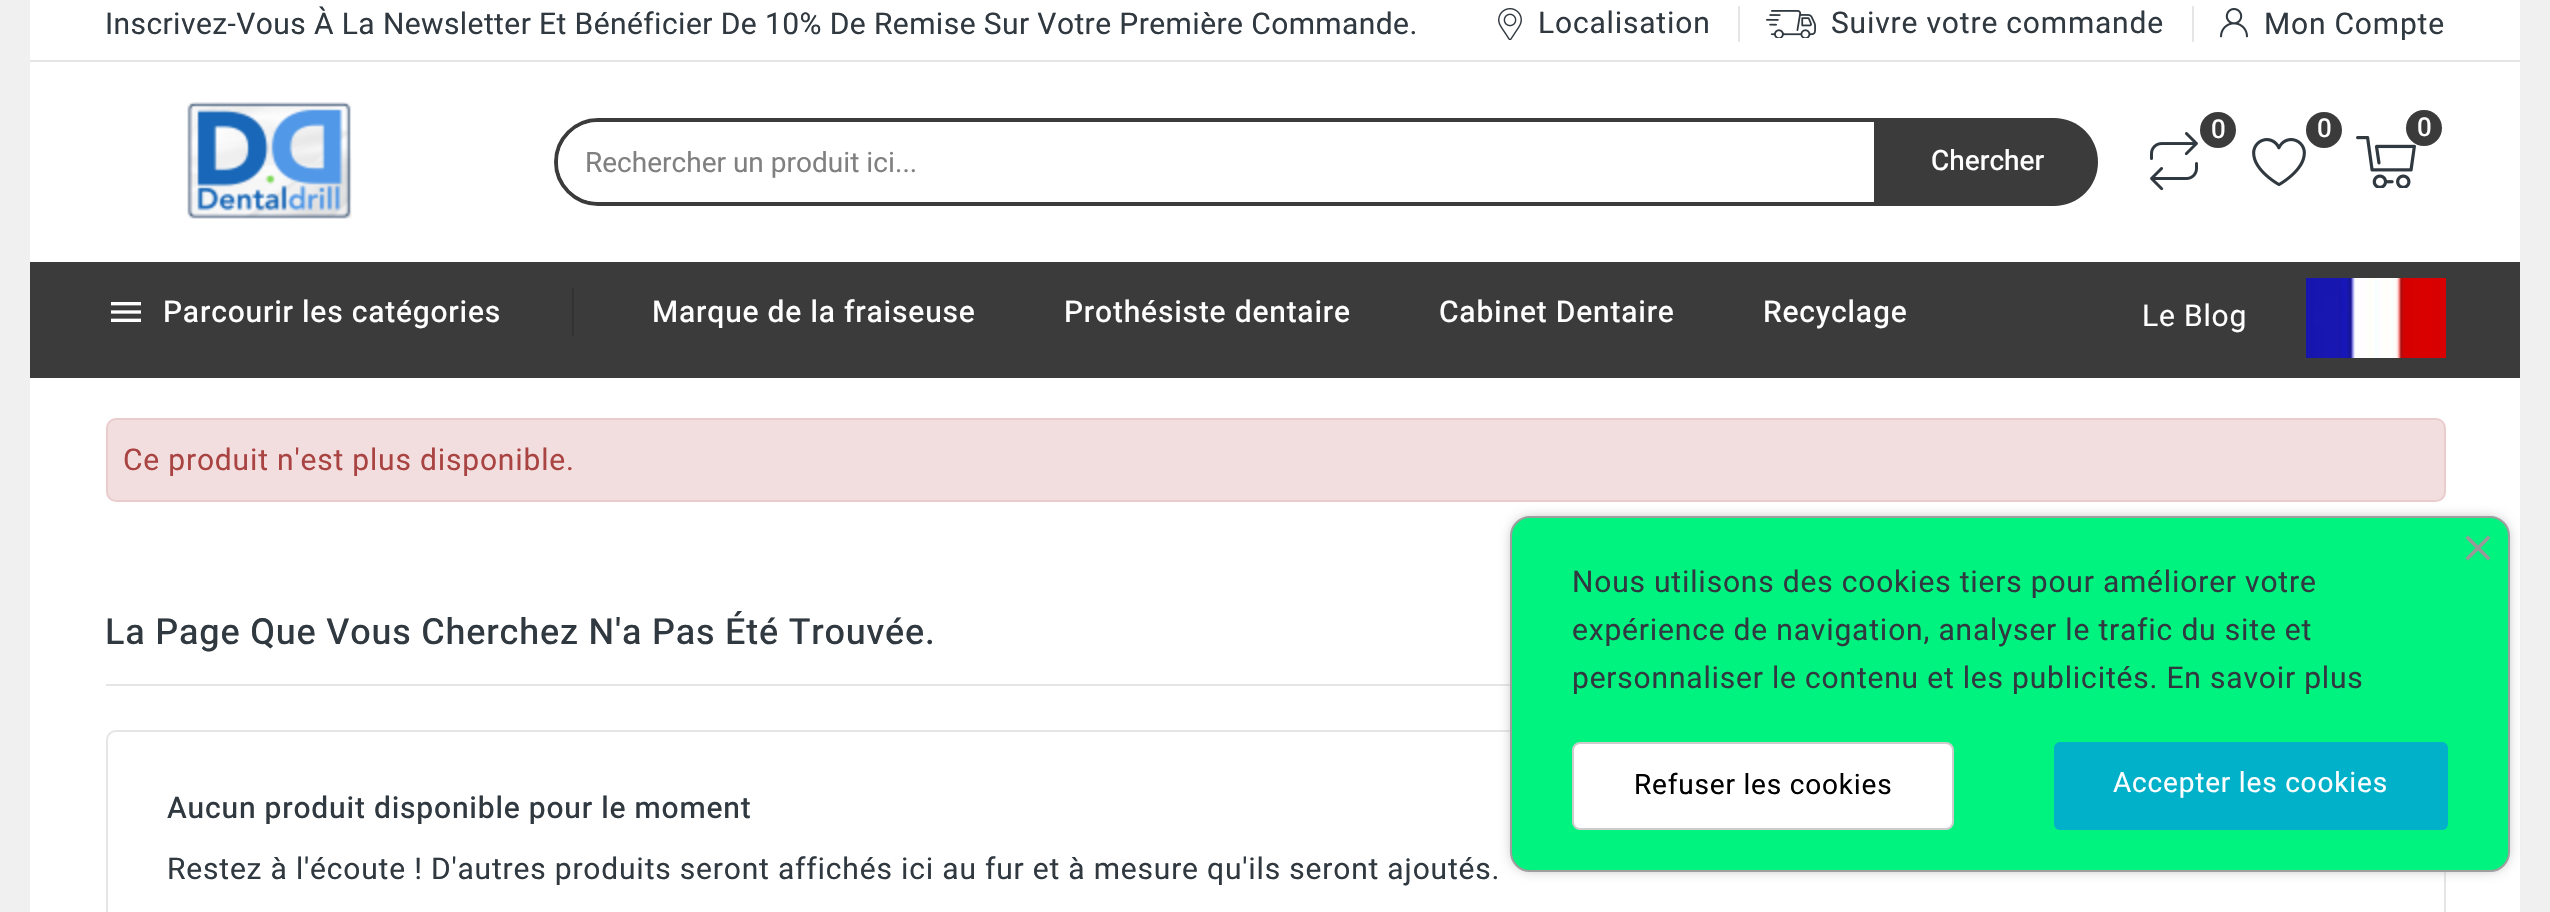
#include "include/core/SkBlurTypes.h"
#include "include/core/SkCanvas.h"
#include "include/core/SkData.h"
#include "include/core/SkFont.h"
#include "include/core/SkFontMgr.h"
#include "include/core/SkImage.h"
#include "include/core/SkMaskFilter.h"
#include "include/core/SkPaint.h"
#include "include/core/SkPathBuilder.h"
#include "include/core/SkTextBlob.h"
#include "include/effects/SkDashPathEffect.h"
#include "include/effects/SkGradientShader.h"
#include "include/utils/SkParsePath.h"

extern sk_sp<SkFontMgr> fontMgr;

static SkFont font(const char* family, int weight, float size, bool italic = false) {
    SkFontStyle style(weight, SkFontStyle::kNormal_Width,
        italic ? SkFontStyle::kItalic_Slant : SkFontStyle::kUpright_Slant);
    SkFont result(fontMgr->matchFamilyStyle(family, style), size);
    result.setSubpixel(true);
    return result;
}

static void drawLabel(SkCanvas* canvas, const char* s, float x, float y, const SkFont& font, SkColor color) {
    SkPaint ink(SkColor4f::FromColor(color));
    ink.setAntiAlias(true);
    canvas->drawString(s, x, y, font, ink);
}

static void drawTracked(SkCanvas* canvas, const char* s, float x, float y, const SkFont& font, const SkPaint& ink, float letter, float word) {
    std::vector<SkGlyphID> glyphs(font.countText(s, strlen(s), SkTextEncoding::kUTF8));
    std::vector<float> xs(glyphs.size());
    font.textToGlyphs(s, strlen(s), SkTextEncoding::kUTF8, glyphs);
    font.getXPos(glyphs, xs, x);
    float extra = 0;
    for (size_t i = 0; i < glyphs.size(); i++) {
        xs[i] += extra;
        extra += letter + word * (glyphs[i] == font.unicharToGlyph(' '));
    }
    canvas->drawTextBlob(SkTextBlob::MakeFromPosHGlyphs(glyphs, xs, y, font), 0, 0, ink);
}

static void fillRect(SkCanvas* canvas, float x, float y, float w, float h, SkColor color) {
    SkPaint ink(SkColor4f::FromColor(color));
    ink.setAntiAlias(true);
    canvas->drawRect(SkRect::MakeXYWH(x, y, w, h), ink);
}

static void fillRRect(SkCanvas* canvas, float x, float y, float w, float h, float radius, SkColor color) {
    SkPaint ink(SkColor4f::FromColor(color));
    ink.setAntiAlias(true);
    canvas->drawRoundRect(SkRect::MakeXYWH(x, y, w, h), radius, radius, ink);
}

static void drawPhoto(SkCanvas* canvas, const char* path, float x, float y, float w, float h) {
    auto image = SkImages::DeferredFromEncodedData(SkData::MakeFromFileName(path));
    canvas->drawImageRect(image, SkRect::MakeXYWH(x, y, w, h), SkSamplingOptions());
}

static SkPath parsePath(const char* data, bool evenOdd = false) {
    SkPath result = *SkParsePath::FromSVGString(data);
    if (evenOdd) result.setFillType(SkPathFillType::kEvenOdd);
    return result;
}

void draw(SkCanvas* canvas) {
    SkPaint paint;
    paint.setAntiAlias(true);
    canvas->clear(0xFFF0F0F0);
    fillRect(canvas, 30, 0, 2490, 912, 0xFFFFFFFF);
    fillRect(canvas, 30, 60, 2490, 2, 0xFFE5E5E5);
    SkFont font1 = font("Heebo", 400, 30);
    paint.setColor(0xFF303840);
    drawTracked(canvas, "Inscrivez-Vous À La Newsletter Et Bénéficier De 10% De Remise Sur Votre Première Commande.", 105, 34, font1, paint, 0.4f, 0);
    drawPhoto(canvas, "assets/img1.png", 1498, 8, 24, 32);
    drawTracked(canvas, "Localisation", 1538, 33, font1, paint, 0.8f, 0);
    fillRect(canvas, 1738, 6, 2, 36, 0xFFE5E5E5);
    drawPhoto(canvas, "assets/img2.png", 1766, 10, 50, 28);
    drawTracked(canvas, "Suivre votre commande", 1831, 33, font1, paint, 0.8f, 0);
    fillRect(canvas, 2192, 6, 2, 36, 0xFFE5E5E5);
    drawPhoto(canvas, "assets/img3.png", 2220, 8, 28, 30);
    drawTracked(canvas, "Mon Compte", 2264, 34, font1, paint, 0.8f, 0);
    drawPhoto(canvas, "assets/img4.png", 187, 102, 165, 117);
    paint.setColor(0xFF3B3B3B);
    canvas->drawCircle(2218, 130, 18, paint);
    SkFont font2 = font("Heebo", 500, 26);
    paint.setColor(0xFFFFFFFF);
    drawTracked(canvas, "0", 2211, 138, font2, paint, 0.8f, 0);
    drawPhoto(canvas, "assets/img5.png", 2150, 132, 48, 59);
    paint.setColor(0xFF3B3B3B);
    canvas->drawCircle(2324, 130, 18, paint);
    paint.setColor(0xFFFFFFFF);
    drawTracked(canvas, "0", 2317, 137, font2, paint, 0.8f, 0);
    drawPhoto(canvas, "assets/img6.png", 2252, 138, 54, 48);
    drawPhoto(canvas, "assets/img7.png", 2356, 136, 60, 52);
    paint.setColor(0xFF3B3B3B);
    canvas->drawCircle(2424, 128, 18, paint);
    paint.setColor(0xFFFFFFFF);
    drawTracked(canvas, "0", 2417, 136, font2, paint, 0.8f, 0);
    paint.setStroke(true);
    paint.setStrokeWidth(4);
    paint.setColor(0xFF3B3B3B);
    canvas->drawPath(parsePath("M598 120H1876V204H598C575 204 556 185 556 162C556 139 575 120 598 120Z"), paint);
    fillRRect(canvas, 558, 122, 1300, 80, 40, 0xFFFFFFFF);
    SkFont font3 = font("Heebo", 400, 28);
    drawLabel(canvas, "Rechercher un produit ici...", 585, 172, font3, 0xFF808080);
    paint.setStroke(false);
    canvas->drawPath(parsePath("M1878 118H2054C2078.5 118 2098 137.5 2098 162C2098 186.5 2078.5 206 2054 206H1878Z"), paint);
    SkFont font4 = font("Heebo", 500, 28);
    drawLabel(canvas, "Chercher", 1931, 170, font4, 0xFFFFFFFF);
    fillRect(canvas, 30, 262, 2490, 116, 0xFF3B3B3B);
    fillRect(canvas, 572, 288, 2, 48, 0xFF323232);
    drawPhoto(canvas, "assets/img8.png", 111, 302, 30, 20);
    SkFont font5 = font("Heebo", 500, 30);
    paint.setColor(0xFFFFFFFF);
    drawTracked(canvas, "Parcourir les catégories", 163, 322, font5, paint, 0.8f, 0);
    drawTracked(canvas, "Marque de la fraiseuse", 652, 322, font5, paint, 0.8f, 0);
    drawTracked(canvas, "Prothésiste dentaire", 1064, 322, font5, paint, 0.8f, 0);
    drawTracked(canvas, "Cabinet Dentaire", 1439, 322, font5, paint, 0.8f, 0);
    drawTracked(canvas, "Recyclage", 1763, 322, font5, paint, 0.8f, 0);
    drawTracked(canvas, "Le Blog", 2142, 326, font1, paint, 0.8f, 0);
    drawPhoto(canvas, "assets/img9.png", 2306, 278, 140, 80);
    paint.setColor(0xFFF2DEDE);
    canvas->drawRoundRect(SkRect::MakeXYWH(107, 419, 2338, 82), 9, 9, paint);
    paint.setStroke(true);
    paint.setStrokeWidth(2);
    paint.setColor(0xFFEBCCCC);
    canvas->drawRoundRect(SkRect::MakeXYWH(107, 419, 2338, 82), 9, 9, paint);
    paint.setStroke(false);
    paint.setColor(0xFFA94442);
    drawTracked(canvas, "Ce produit n'est plus disponible.", 123, 470, font1, paint, 0.8f, 0);
    fillRect(canvas, 106, 684, 1404, 2, 0xFFE5E5E5);
    SkFont font6 = font("Heebo", 500, 36);
    paint.setColor(0xFF303840);
    drawTracked(canvas, "La Page Que Vous Cherchez N'a Pas Été Trouvée.", 105, 644, font6, paint, 0.8f, 0);
    paint.setStroke(true);
    paint.setColor(0xFFE5E5E5);
    canvas->drawRoundRect(SkRect::MakeXYWH(107, 731, 2338, 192), 9, 9, paint);
    paint.setStroke(false);
    paint.setColor(0xFF303840);
    drawTracked(canvas, "Aucun produit disponible pour le moment", 167, 818, font5, paint, 0.8f, 0);
    drawTracked(canvas, "Restez à l'écoute ! D'autres produits seront affichés ici au fur et à mesure qu'ils seront ajoutés.", 167, 879, font1, paint, 0.8f, 0);
    paint.setColor(0xFF9E9E9E);
    paint.setMaskFilter(SkMaskFilter::MakeBlur(kNormal_SkBlurStyle, 7));
    canvas->drawRoundRect(SkRect::MakeXYWH(1514, 520, 992, 348), 16, 16, paint);
    paint.setMaskFilter(nullptr);
    paint.setColor(0xFF00F27F);
    canvas->drawRoundRect(SkRect::MakeXYWH(1511, 517, 998, 354), 19, 19, paint);
    paint.setStroke(true);
    paint.setColor(0xFF9E9E9E);
    canvas->drawRoundRect(SkRect::MakeXYWH(1511, 517, 998, 354), 19, 19, paint);
    paint.setStroke(false);
    paint.setColor(0xFF999999);
    canvas->drawPath(parsePath("M2465.5 558L2488 535.5L2490.5 538L2468 560.5Z"), paint);
    canvas->drawPath(parsePath("M2468 535.5L2490.5 558L2488 560.5L2465.5 538Z"), paint);
    paint.setColor(0xFF303840);
    drawTracked(canvas, "Nous utilisons des cookies tiers pour améliorer votre", 1572, 592, font1, paint, 0.8f, 0);
    drawTracked(canvas, "expérience de navigation, analyser le trafic du site et", 1572, 640, font1, paint, 0.8f, 0);
    drawTracked(canvas, "personnaliser le contenu et les publicités. En savoir plus", 1572, 688, font1, paint, 0.8f, 0);
    paint.setColor(0xFFFFFFFF);
    canvas->drawRoundRect(SkRect::MakeXYWH(1573, 743, 380, 86), 7, 7, paint);
    paint.setStroke(true);
    paint.setColor(0xFFCCCCCC);
    canvas->drawRoundRect(SkRect::MakeXYWH(1573, 743, 380, 86), 7, 7, paint);
    paint.setStroke(false);
    paint.setColor(0xFF000000);
    drawTracked(canvas, "Refuser les cookies", 1634, 794, font3, paint, 0.8f, 0);
    fillRRect(canvas, 2054, 742, 394, 88, 6, 0xFF00B1C9);
    paint.setColor(0xFFFFFFFF);
    drawTracked(canvas, "Accepter les cookies", 2113, 792, font3, paint, 0.8f, 0);
}
